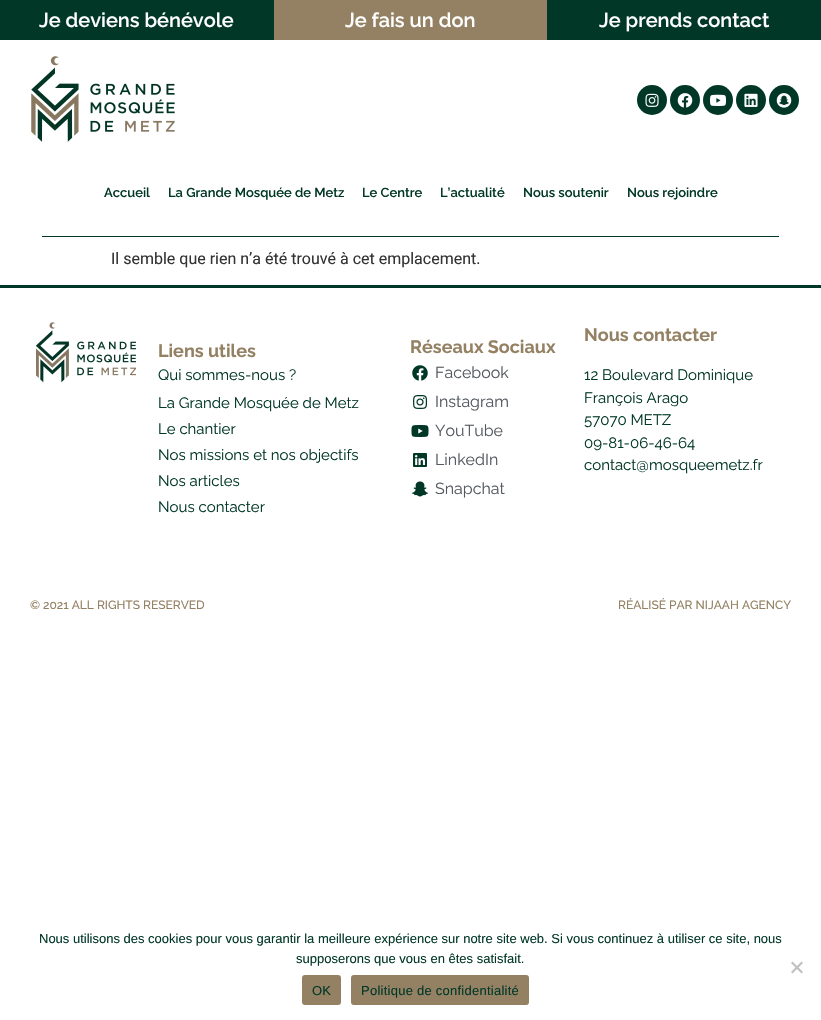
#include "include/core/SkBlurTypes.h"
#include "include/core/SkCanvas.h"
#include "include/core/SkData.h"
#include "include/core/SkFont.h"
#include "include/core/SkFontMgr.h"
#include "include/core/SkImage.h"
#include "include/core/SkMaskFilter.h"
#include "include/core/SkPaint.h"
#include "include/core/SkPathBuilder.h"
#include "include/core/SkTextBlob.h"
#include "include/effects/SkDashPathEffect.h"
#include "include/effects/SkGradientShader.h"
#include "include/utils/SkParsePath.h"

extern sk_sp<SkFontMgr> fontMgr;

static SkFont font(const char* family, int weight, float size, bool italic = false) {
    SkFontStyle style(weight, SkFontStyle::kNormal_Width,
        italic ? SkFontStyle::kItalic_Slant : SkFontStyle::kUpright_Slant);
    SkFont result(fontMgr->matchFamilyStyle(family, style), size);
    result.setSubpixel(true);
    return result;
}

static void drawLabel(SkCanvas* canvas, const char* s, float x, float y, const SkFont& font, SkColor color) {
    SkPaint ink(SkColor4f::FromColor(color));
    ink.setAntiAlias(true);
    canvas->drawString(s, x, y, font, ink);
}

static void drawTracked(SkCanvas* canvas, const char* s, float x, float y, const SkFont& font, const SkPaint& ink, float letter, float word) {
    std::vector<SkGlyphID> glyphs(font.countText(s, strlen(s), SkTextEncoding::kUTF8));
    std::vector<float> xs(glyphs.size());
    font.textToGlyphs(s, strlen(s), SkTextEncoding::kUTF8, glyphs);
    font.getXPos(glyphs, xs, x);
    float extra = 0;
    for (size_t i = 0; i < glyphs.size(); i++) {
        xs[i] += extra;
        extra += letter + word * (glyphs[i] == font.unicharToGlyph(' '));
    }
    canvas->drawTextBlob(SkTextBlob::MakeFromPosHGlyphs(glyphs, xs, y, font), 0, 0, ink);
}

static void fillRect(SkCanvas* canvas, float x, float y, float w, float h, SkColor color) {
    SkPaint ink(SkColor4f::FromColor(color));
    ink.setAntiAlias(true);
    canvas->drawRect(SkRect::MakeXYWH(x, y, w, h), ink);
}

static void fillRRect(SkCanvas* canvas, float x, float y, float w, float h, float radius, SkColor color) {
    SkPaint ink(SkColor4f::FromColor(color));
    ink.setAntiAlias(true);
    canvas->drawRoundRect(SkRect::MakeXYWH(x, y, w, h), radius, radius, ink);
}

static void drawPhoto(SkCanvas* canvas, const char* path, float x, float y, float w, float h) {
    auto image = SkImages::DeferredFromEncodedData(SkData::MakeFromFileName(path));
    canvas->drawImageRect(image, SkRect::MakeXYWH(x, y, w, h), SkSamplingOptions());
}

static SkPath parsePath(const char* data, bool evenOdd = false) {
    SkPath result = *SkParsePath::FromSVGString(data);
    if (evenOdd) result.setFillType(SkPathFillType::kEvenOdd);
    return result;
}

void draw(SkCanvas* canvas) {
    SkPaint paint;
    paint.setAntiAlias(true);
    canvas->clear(0xFFFFFFFF);
    fillRect(canvas, 0, 0, 274, 40, 0xFF013727);
    SkFont font1 = font("Raleway", 600, 20);
    drawLabel(canvas, "Je deviens bénévole", 39, 27, font1, 0xFFFFFFFF);
    fillRect(canvas, 274, 0, 273, 40, 0xFF948163);
    drawLabel(canvas, "Je fais un don", 345, 27, font1, 0xFFFFFFFF);
    fillRect(canvas, 547, 0, 274, 40, 0xFF013727);
    drawLabel(canvas, "Je prends contact", 599, 27, font1, 0xFFFFFFFF);
    drawPhoto(canvas, "assets/img1.png", 31, 56, 144, 86);
    paint.setColor(0xFF013727);
    canvas->drawCircle(652, 100, 15, paint);
    drawPhoto(canvas, "assets/img2.png", 645, 93, 14, 14);
    canvas->drawCircle(685, 100, 15, paint);
    drawPhoto(canvas, "assets/img3.png", 677, 93, 16, 15);
    canvas->drawCircle(718, 100, 15, paint);
    drawPhoto(canvas, "assets/img4.png", 710, 94, 16, 12);
    canvas->drawCircle(751, 100, 15, paint);
    drawPhoto(canvas, "assets/img5.png", 744, 93, 14, 14);
    canvas->drawCircle(784, 100, 15, paint);
    drawPhoto(canvas, "assets/img6.png", 776, 93, 16, 15);
    SkFont font2 = font("Raleway", 600, 13);
    drawLabel(canvas, "Accueil", 104, 197, font2, 0xFF013727);
    drawLabel(canvas, "La Grande Mosquée de Metz", 168, 197, font2, 0xFF013727);
    drawLabel(canvas, "Le Centre", 362, 197, font2, 0xFF013727);
    drawLabel(canvas, "L’actualité", 440, 197, font2, 0xFF013727);
    drawLabel(canvas, "Nous soutenir", 523, 197, font2, 0xFF013727);
    drawLabel(canvas, "Nous rejoindre", 627, 197, font2, 0xFF013727);
    fillRect(canvas, 42, 236, 737, 1, 0xFF013727);
    SkFont font3 = font("Roboto", 400, 16);
    drawLabel(canvas, "Il semble que rien n’a été trouvé à cet emplacement.", 111, 264, font3, 0xFF333333);
    fillRect(canvas, 0, 285, 821, 3, 0xFF013727);
    drawPhoto(canvas, "assets/img7.png", 36, 322, 100, 61);
    SkFont font4 = font("Raleway", 700, 18);
    drawLabel(canvas, "Liens utiles", 158, 357, font4, 0xFF948163);
    SkFont font5 = font("Raleway", 400, 15);
    drawLabel(canvas, "Qui sommes-nous ?", 158, 380, font5, 0xFF013727);
    drawLabel(canvas, "La Grande Mosquée de Metz", 158, 408, font5, 0xFF013727);
    drawLabel(canvas, "Le chantier", 158, 434, font5, 0xFF013727);
    drawLabel(canvas, "Nos missions et nos objectifs", 158, 460, font5, 0xFF013727);
    drawLabel(canvas, "Nos articles", 158, 486, font5, 0xFF013727);
    drawLabel(canvas, "Nous contacter", 158, 512, font5, 0xFF013727);
    drawLabel(canvas, "Réseaux Sociaux", 410, 353, font4, 0xFF948163);
    drawPhoto(canvas, "assets/img8.png", 412, 365, 16, 16);
    SkFont font6 = font("Raleway", 400, 16);
    drawLabel(canvas, "Facebook", 435, 378, font6, 0xFF54595F);
    drawPhoto(canvas, "assets/img9.png", 413, 395, 15, 14);
    drawLabel(canvas, "Instagram", 435, 407, font6, 0xFF54595F);
    drawPhoto(canvas, "assets/img10.png", 411, 425, 18, 12);
    drawLabel(canvas, "YouTube", 435, 436, font6, 0xFF54595F);
    drawPhoto(canvas, "assets/img11.png", 413, 453, 14, 14);
    drawLabel(canvas, "LinkedIn", 435, 465, font6, 0xFF54595F);
    drawPhoto(canvas, "assets/img12.png", 412, 481, 16, 16);
    drawLabel(canvas, "Snapchat", 435, 494, font6, 0xFF54595F);
    drawLabel(canvas, "Nous contacter", 584, 341, font4, 0xFF948163);
    drawLabel(canvas, "12 Boulevard Dominique", 584, 380, font5, 0xFF013727);
    drawLabel(canvas, "François Arago", 584, 403, font5, 0xFF013727);
    drawLabel(canvas, "57070 METZ", 584, 425, font5, 0xFF013727);
    drawLabel(canvas, "09-81-06-46-64", 584, 448, font5, 0xFF013727);
    drawLabel(canvas, "contact@mosqueemetz.fr", 584, 470, font5, 0xFF013727);
    SkFont font7 = font("Raleway", 500, 12);
    drawLabel(canvas, "© 2021 ALL RIGHTS RESERVED", 30, 609, font7, 0xFF948163);
    drawLabel(canvas, "RÉALISÉ PAR NIJAAH AGENCY", 618, 609, font7, 0xFF948163);
    SkFont font8 = font("Liberation Sans", 400, 13);
    drawLabel(canvas, "Nous utilisons des cookies pour vous garantir la meilleure expérience sur notre site web. Si vous continuez à utiliser ce site, nous", 39, 943, font8, 0xFF013727);
    drawLabel(canvas, "supposerons que vous en êtes satisfait.", 296, 963, font8, 0xFF013727);
    paint.setColor(0xFFC0C0C0);
    canvas->drawPath(parsePath("M801.5 961.5L803 963L792.5 973.5L791 972Z"), paint);
    canvas->drawPath(parsePath("M791 963L792.5 961.5L803 972L801.5 973.5Z"), paint);
    fillRRect(canvas, 302, 975, 39, 30, 3, 0xFF948163);
    paint.setColor(0xFF013727);
    drawTracked(canvas, "OK", 312, 995, font8, paint, 0.25f, 0);
    fillRRect(canvas, 351, 975, 178, 30, 3, 0xFF948163);
    drawTracked(canvas, "Politique de confidentialité", 361, 995, font8, paint, 0.25f, 0);
}
